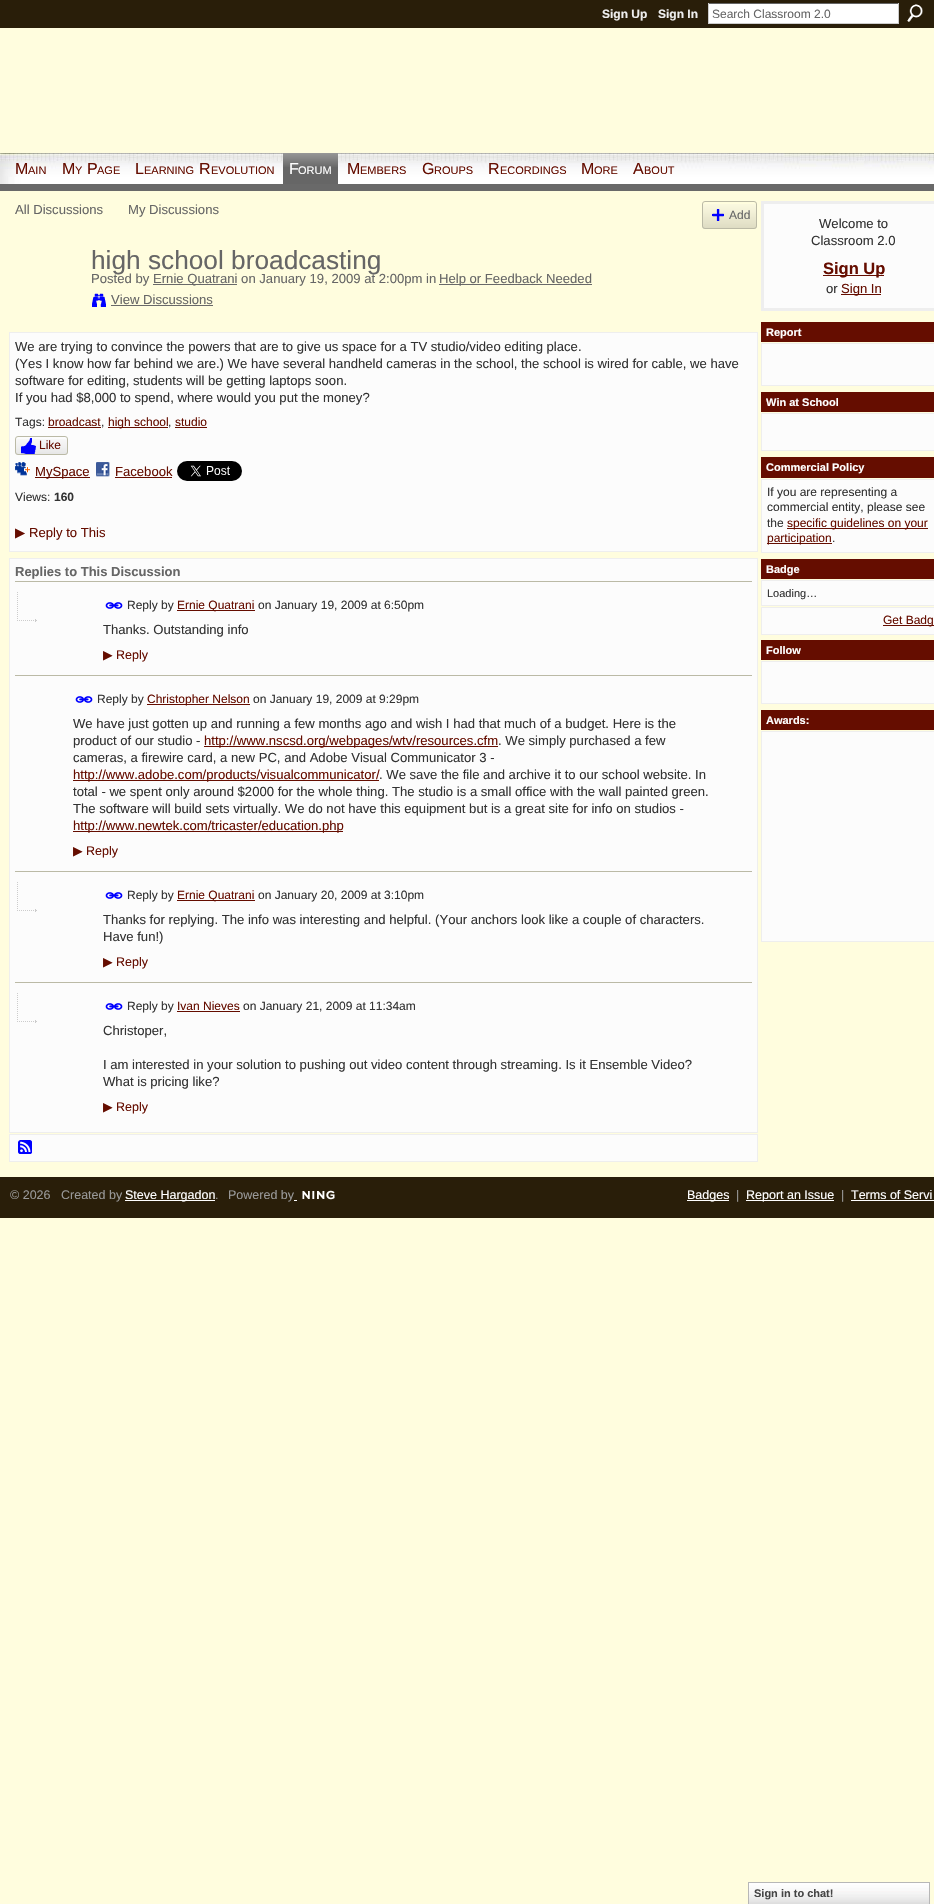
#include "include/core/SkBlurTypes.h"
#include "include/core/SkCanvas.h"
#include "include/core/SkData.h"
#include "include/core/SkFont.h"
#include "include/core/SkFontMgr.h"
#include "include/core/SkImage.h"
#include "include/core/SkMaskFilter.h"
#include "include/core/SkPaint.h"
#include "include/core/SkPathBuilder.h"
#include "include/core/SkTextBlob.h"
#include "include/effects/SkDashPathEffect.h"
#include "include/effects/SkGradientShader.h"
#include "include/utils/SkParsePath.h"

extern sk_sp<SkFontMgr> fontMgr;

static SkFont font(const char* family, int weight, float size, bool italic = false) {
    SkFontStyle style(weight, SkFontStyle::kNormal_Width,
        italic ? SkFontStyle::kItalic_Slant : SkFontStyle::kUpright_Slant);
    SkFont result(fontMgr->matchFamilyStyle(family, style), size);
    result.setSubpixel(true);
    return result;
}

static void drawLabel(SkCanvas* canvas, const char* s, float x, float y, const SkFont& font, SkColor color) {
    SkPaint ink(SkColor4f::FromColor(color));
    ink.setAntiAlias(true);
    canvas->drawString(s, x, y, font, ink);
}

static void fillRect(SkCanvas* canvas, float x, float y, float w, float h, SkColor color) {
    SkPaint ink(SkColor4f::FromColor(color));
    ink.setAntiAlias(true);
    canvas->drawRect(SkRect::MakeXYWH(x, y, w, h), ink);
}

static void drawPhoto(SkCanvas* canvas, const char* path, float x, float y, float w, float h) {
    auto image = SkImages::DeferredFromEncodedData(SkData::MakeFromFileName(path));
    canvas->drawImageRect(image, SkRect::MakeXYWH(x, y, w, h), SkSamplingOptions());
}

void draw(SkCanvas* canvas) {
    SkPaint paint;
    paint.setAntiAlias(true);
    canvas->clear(0xFFFFFDDE);
    fillRect(canvas, 0, 0, 934, 28, 0xFF291E09);
    SkFont font1 = font("Liberation Sans", 700, 12);
    drawLabel(canvas, "Sign Up", 602, 18, font1, 0xFFEEEEEE);
    drawLabel(canvas, "Sign In", 658, 18, font1, 0xFFEEEEEE);
    fillRect(canvas, 709, 4, 189, 19, 0xFFFFFFFF);
    fillRect(canvas, 708, 3, 191, 1, 0xFF666666);
    fillRect(canvas, 898, 3, 1, 21, 0xFFCCCCCC);
    fillRect(canvas, 708, 23, 191, 1, 0xFFCCCCCC);
    fillRect(canvas, 708, 3, 1, 21, 0xFFCCCCCC);
    SkFont font2 = font("Liberation Sans", 400, 12);
    drawLabel(canvas, "Search Classroom 2.0", 712, 18, font2, 0xFF666666);
    drawPhoto(canvas, "assets/img1.png", 907, 4, 16, 18);
    drawPhoto(canvas, "assets/img2.png", 0, 153, 934, 31);
    fillRect(canvas, 0, 184, 934, 7, 0xFF696969);
    SkFont font3 = font("Liberation Sans", 400, 16);
    drawLabel(canvas, "M", 15, 174, font3, 0xFF650D00);
    SkFont font4 = font("Liberation Sans", 400, 11);
    drawLabel(canvas, "AIN", 28, 174, font4, 0xFF650D00);
    drawLabel(canvas, "M", 62, 174, font3, 0xFF650D00);
    drawLabel(canvas, "Y", 75, 174, font4, 0xFF650D00);
    drawLabel(canvas, "P", 87, 174, font3, 0xFF650D00);
    drawLabel(canvas, "AGE", 97, 174, font4, 0xFF650D00);
    drawLabel(canvas, "L", 135, 174, font3, 0xFF650D00);
    drawLabel(canvas, "EARNING", 144, 174, font4, 0xFF650D00);
    drawLabel(canvas, "R", 199, 174, font3, 0xFF650D00);
    drawLabel(canvas, "EVOLUTION", 211, 174, font4, 0xFF650D00);
    fillRect(canvas, 283, 167, 55, 17, 0xFF666666);
    drawPhoto(canvas, "assets/img3.png", 283, 153, 55, 14);
    drawLabel(canvas, "F", 289, 174, font3, 0xFFFFFFFF);
    drawLabel(canvas, "ORUM", 298, 174, font4, 0xFFFFFFFF);
    drawLabel(canvas, "M", 347, 174, font3, 0xFF650D00);
    drawLabel(canvas, "EMBERS", 360, 174, font4, 0xFF650D00);
    drawLabel(canvas, "G", 422, 174, font3, 0xFF650D00);
    drawLabel(canvas, "ROUPS", 434, 174, font4, 0xFF650D00);
    drawLabel(canvas, "R", 488, 174, font3, 0xFF650D00);
    drawLabel(canvas, "ECORDINGS", 500, 174, font4, 0xFF650D00);
    drawLabel(canvas, "M", 581, 174, font3, 0xFF650D00);
    drawLabel(canvas, "ORE", 594, 174, font4, 0xFF650D00);
    drawLabel(canvas, "A", 633, 174, font3, 0xFF650D00);
    drawLabel(canvas, "BOUT", 644, 174, font4, 0xFF650D00);
    SkFont font5 = font("Liberation Sans", 400, 13.1f);
    drawLabel(canvas, "All Discussions", 15, 214, font5, 0xFF666666);
    drawLabel(canvas, "My Discussions", 128, 214, font5, 0xFF666666);
    drawPhoto(canvas, "assets/img4.png", 702, 204, 55, 25);
    paint.setStroke(true);
    paint.setStrokeWidth(1);
    paint.setColor(0xFFBBBAA6);
    canvas->drawRoundRect(SkRect::MakeXYWH(702.5f, 201.5f, 54, 27), 2.5f, 2.5f, paint);
    drawPhoto(canvas, "assets/img5.png", 712, 209, 12, 12);
    drawLabel(canvas, "Add", 729, 219, font2, 0xFF666666);
    SkFont font6 = font("Liberation Sans", 400, 26.25f);
    drawLabel(canvas, "high school broadcasting", 91, 269, font6, 0xFF666666);
    drawLabel(canvas, "Posted by", 91, 283, font5, 0xFF666666);
    fillRect(canvas, 153, 284, 84, 1, 0xFF696969);
    drawLabel(canvas, "Ernie Quatrani on January 19, 2009 at 2:00pm in", 153, 283, font5, 0xFF666666);
    fillRect(canvas, 439, 284, 153, 1, 0xFF696969);
    drawLabel(canvas, "Help or Feedback Needed", 439, 283, font5, 0xFF666666);
    drawPhoto(canvas, "assets/img6.png", 92, 293, 14, 14);
    drawLabel(canvas, "View Discussions", 111, 304, font5, 0xFF666666);
    fillRect(canvas, 111, 305, 102, 1, 0xFF696969);
    paint.setStroke(false);
    paint.setColor(0xFFFCFCFC);
    canvas->drawRect(SkRect::MakeXYWH(9.5f, 332.5f, 748, 219), paint);
    paint.setStroke(true);
    paint.setColor(0xFFEEEEEE);
    canvas->drawRect(SkRect::MakeXYWH(9.5f, 332.5f, 748, 219), paint);
    drawLabel(canvas, "We are trying to convince the powers that are to give us space for a TV studio/video editing place.", 15, 351, font5, 0xFF333333);
    drawLabel(canvas, "(Yes I know how far behind we are.) We have several handheld cameras in the school, the school is wired for cable, we have", 15, 368, font5, 0xFF333333);
    drawLabel(canvas, "software for editing, students will be getting laptops soon.", 15, 385, font5, 0xFF333333);
    drawLabel(canvas, "If you had $8,000 to spend, where would you put the money?", 15, 402, font5, 0xFF333333);
    drawLabel(canvas, "Tags:", 15, 426, font2, 0xFF333333);
    drawLabel(canvas, "broadcast", 48, 426, font2, 0xFF650D00);
    fillRect(canvas, 48, 427, 53, 1, 0xFF650D00);
    drawLabel(canvas, ",", 101, 426, font2, 0xFF333333);
    fillRect(canvas, 108, 427, 60, 1, 0xFF650D00);
    drawLabel(canvas, "high school", 108, 426, font2, 0xFF650D00);
    drawLabel(canvas, ",", 168, 426, font2, 0xFF333333);
    drawLabel(canvas, "studio", 175, 426, font2, 0xFF650D00);
    fillRect(canvas, 175, 427, 32, 1, 0xFF650D00);
    drawPhoto(canvas, "assets/img7.png", 15, 439, 53, 16);
    paint.setColor(0xFFBBBAA6);
    canvas->drawRoundRect(SkRect::MakeXYWH(15.5f, 436.5f, 52, 18), 2.5f, 2.5f, paint);
    drawPhoto(canvas, "assets/img8.png", 21, 438, 15, 16);
    drawLabel(canvas, "Like", 39, 449, font2, 0xFF650D00);
    drawPhoto(canvas, "assets/img9.png", 15, 462, 15, 14);
    fillRect(canvas, 35, 477, 55, 1, 0xFF650D00);
    drawLabel(canvas, "MySpace", 35, 476, font5, 0xFF650D00);
    drawPhoto(canvas, "assets/img10.png", 96, 462, 14, 15);
    drawLabel(canvas, "Facebook", 115, 476, font5, 0xFF650D00);
    fillRect(canvas, 115, 477, 57, 1, 0xFF650D00);
    drawPhoto(canvas, "assets/img11.png", 177, 461, 65, 20);
    drawLabel(canvas, "Views:", 15, 501, font2, 0xFF333333);
    drawLabel(canvas, "160", 54, 501, font1, 0xFF333333);
    SkFont font7 = font("DejaVu Sans", 400, 13.1f);
    drawLabel(canvas, "▶", 15, 537, font7, 0xFF650D00);
    drawLabel(canvas, "Reply to This", 29, 537, font5, 0xFF650D00);
    paint.setStroke(false);
    paint.setColor(0xFFFCFCFC);
    canvas->drawRect(SkRect::MakeXYWH(9.5f, 558.5f, 748, 574), paint);
    paint.setStroke(true);
    paint.setColor(0xFFEEEEEE);
    canvas->drawRect(SkRect::MakeXYWH(9.5f, 558.5f, 748, 574), paint);
    SkFont font8 = font("Liberation Sans", 700, 13);
    drawLabel(canvas, "Replies to This Discussion", 15, 576, font8, 0xFF666666);
    drawPhoto(canvas, "assets/img12.png", 17, 592, 20, 30);
    fillRect(canvas, 15, 581, 737, 1, 0xFFBBBAA6);
    drawPhoto(canvas, "assets/img13.png", 105, 602, 18, 7);
    drawLabel(canvas, "Reply by", 127, 609, font2, 0xFF333333);
    fillRect(canvas, 177, 610, 78, 1, 0xFF650D00);
    drawLabel(canvas, "Ernie Quatrani", 177, 609, font2, 0xFF650D00);
    drawLabel(canvas, "on January 19, 2009 at 6:50pm", 258, 609, font2, 0xFF333333);
    drawLabel(canvas, "Thanks. Outstanding info", 103, 634, font5, 0xFF333333);
    SkFont font9 = font("DejaVu Sans", 400, 12.5f);
    drawLabel(canvas, "▶", 103, 659, font9, 0xFF650D00);
    SkFont font10 = font("Liberation Sans", 400, 12.5f);
    drawLabel(canvas, "Reply", 116, 659, font10, 0xFF650D00);
    fillRect(canvas, 15, 675, 737, 1, 0xFFBBBAA6);
    drawPhoto(canvas, "assets/img13.png", 75, 696, 18, 7);
    drawLabel(canvas, "Reply by", 97, 703, font2, 0xFF333333);
    fillRect(canvas, 147, 704, 103, 1, 0xFF650D00);
    drawLabel(canvas, "Christopher Nelson", 147, 703, font2, 0xFF650D00);
    drawLabel(canvas, "on January 19, 2009 at 9:29pm", 253, 703, font2, 0xFF333333);
    drawLabel(canvas, "We have just gotten up and running a few months ago and wish I had that much of a budget. Here is the", 73, 728, font5, 0xFF333333);
    drawLabel(canvas, "product of our studio -", 73, 745, font5, 0xFF333333);
    fillRect(canvas, 204, 746, 294, 1, 0xFF650D00);
    drawLabel(canvas, "http://www.nscsd.org/webpages/wtv/resources.cfm", 204, 745, font5, 0xFF650D00);
    drawLabel(canvas, ". We simply purchased a few", 498, 745, font5, 0xFF333333);
    drawLabel(canvas, "cameras, a firewire card, a new PC, and Adobe Visual Communicator 3 -", 73, 762, font5, 0xFF333333);
    fillRect(canvas, 73, 780, 306, 1, 0xFF650D00);
    drawLabel(canvas, "http://www.adobe.com/products/visualcommunicator/", 73, 779, font5, 0xFF650D00);
    drawLabel(canvas, ". We save the file and archive it to our school website. In", 379, 779, font5, 0xFF333333);
    drawLabel(canvas, "total - we spent only around $2000 for the whole thing. The studio is a small office with the wall painted green.", 73, 796, font5, 0xFF333333);
    drawLabel(canvas, "The software will build sets virtually. We do not have this equipment but is a great site for info on studios -", 73, 813, font5, 0xFF333333);
    fillRect(canvas, 73, 831, 270, 1, 0xFF650D00);
    drawLabel(canvas, "http://www.newtek.com/tricaster/education.php", 73, 830, font5, 0xFF650D00);
    drawLabel(canvas, "▶", 73, 855, font9, 0xFF650D00);
    drawLabel(canvas, "Reply", 86, 855, font10, 0xFF650D00);
    drawPhoto(canvas, "assets/img12.png", 17, 882, 20, 30);
    fillRect(canvas, 15, 871, 737, 1, 0xFFBBBAA6);
    drawPhoto(canvas, "assets/img13.png", 105, 892, 18, 7);
    drawLabel(canvas, "Reply by", 127, 899, font2, 0xFF333333);
    fillRect(canvas, 177, 900, 78, 1, 0xFF650D00);
    drawLabel(canvas, "Ernie Quatrani", 177, 899, font2, 0xFF650D00);
    drawLabel(canvas, "on January 20, 2009 at 3:10pm", 258, 899, font2, 0xFF333333);
    drawLabel(canvas, "Thanks for replying. The info was interesting and helpful. (Your anchors look like a couple of characters.", 103, 924, font5, 0xFF333333);
    drawLabel(canvas, "Have fun!)", 103, 941, font5, 0xFF333333);
    drawLabel(canvas, "▶", 103, 966, font9, 0xFF650D00);
    drawLabel(canvas, "Reply", 116, 966, font10, 0xFF650D00);
    drawPhoto(canvas, "assets/img12.png", 17, 993, 20, 30);
    fillRect(canvas, 15, 982, 737, 1, 0xFFBBBAA6);
    drawPhoto(canvas, "assets/img13.png", 105, 1003, 18, 7);
    drawLabel(canvas, "Reply by", 127, 1010, font2, 0xFF333333);
    drawLabel(canvas, "Ivan Nieves", 177, 1010, font2, 0xFF650D00);
    fillRect(canvas, 177, 1011, 63, 1, 0xFF650D00);
    drawLabel(canvas, "on January 21, 2009 at 11:34am", 243, 1010, font2, 0xFF333333);
    drawLabel(canvas, "Christoper,", 103, 1035, font5, 0xFF333333);
    drawLabel(canvas, "I am interested in your solution to pushing out video content through streaming. Is it Ensemble Video?", 103, 1069, font5, 0xFF333333);
    drawLabel(canvas, "What is pricing like?", 103, 1086, font5, 0xFF333333);
    drawLabel(canvas, "▶", 103, 1111, font9, 0xFF650D00);
    drawLabel(canvas, "Reply", 116, 1111, font10, 0xFF650D00);
    paint.setStroke(false);
    paint.setColor(0xFFFCFCFC);
    canvas->drawRect(SkRect::MakeXYWH(9.5f, 1134.5f, 748, 27), paint);
    paint.setStroke(true);
    paint.setColor(0xFFEEEEEE);
    canvas->drawRect(SkRect::MakeXYWH(9.5f, 1134.5f, 748, 27), paint);
    drawPhoto(canvas, "assets/img14.png", 18, 1140, 14, 14);
    paint.setStroke(false);
    paint.setColor(0xFFFCFCFC);
    canvas->drawRect(SkRect::MakeXYWH(762.5f, 202.5f, 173, 107), paint);
    paint.setStroke(true);
    paint.setStrokeWidth(3);
    paint.setColor(0xFFEEEEEE);
    canvas->drawRect(SkRect::MakeXYWH(762.5f, 202.5f, 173, 107), paint);
    drawLabel(canvas, "Welcome to", 819, 228, font5, 0xFF333333);
    drawLabel(canvas, "Classroom 2.0", 811, 245, font5, 0xFF333333);
    fillRect(canvas, 823, 275, 61, 1, 0xFF650D00);
    SkFont font11 = font("Liberation Sans", 700, 16.5f);
    drawLabel(canvas, "Sign Up", 823, 274, font11, 0xFF650D00);
    drawLabel(canvas, "or", 826, 293, font5, 0xFF333333);
    fillRect(canvas, 841, 294, 40, 1, 0xFF650D00);
    drawLabel(canvas, "Sign In", 841, 293, font5, 0xFF650D00);
    fillRect(canvas, 761, 322, 173, 20, 0xFF650D00);
    SkFont font12 = font("Liberation Sans", 700, 11);
    drawLabel(canvas, "Report", 766, 336, font12, 0xFFFFFFFF);
    paint.setStroke(false);
    paint.setColor(0xFFFCFCFC);
    canvas->drawRect(SkRect::MakeXYWH(761.5f, 343.5f, 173, 42), paint);
    paint.setStroke(true);
    paint.setStrokeWidth(1);
    paint.setColor(0xFFEEEEEE);
    canvas->drawRect(SkRect::MakeXYWH(761.5f, 343.5f, 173, 42), paint);
    fillRect(canvas, 761, 392, 173, 20, 0xFF650D00);
    drawLabel(canvas, "Win at School", 766, 406, font12, 0xFFFFFFFF);
    paint.setStroke(false);
    paint.setColor(0xFFFCFCFC);
    canvas->drawRect(SkRect::MakeXYWH(761.5f, 413.5f, 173, 37), paint);
    paint.setStroke(true);
    paint.setColor(0xFFEEEEEE);
    canvas->drawRect(SkRect::MakeXYWH(761.5f, 413.5f, 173, 37), paint);
    fillRect(canvas, 761, 457, 173, 21, 0xFF650D00);
    drawLabel(canvas, "Commercial Policy", 766, 471, font12, 0xFFFFFFFF);
    paint.setStroke(false);
    paint.setColor(0xFFFCFCFC);
    canvas->drawRect(SkRect::MakeXYWH(761.5f, 479.5f, 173, 73), paint);
    paint.setStroke(true);
    paint.setColor(0xFFEEEEEE);
    canvas->drawRect(SkRect::MakeXYWH(761.5f, 479.5f, 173, 73), paint);
    drawLabel(canvas, "If you are representing a", 767, 496, font2, 0xFF333333);
    drawLabel(canvas, "commercial entity, please see", 767, 511, font2, 0xFF333333);
    drawLabel(canvas, "the", 767, 527, font2, 0xFF333333);
    fillRect(canvas, 787, 528, 141, 1, 0xFF650D00);
    drawLabel(canvas, "specific guidelines on your", 787, 527, font2, 0xFF650D00);
    fillRect(canvas, 767, 543, 65, 1, 0xFF650D00);
    drawLabel(canvas, "participation", 767, 542, font2, 0xFF650D00);
    drawLabel(canvas, ".", 832, 542, font2, 0xFF333333);
    fillRect(canvas, 761, 559, 173, 20, 0xFF650D00);
    drawLabel(canvas, "Badge", 766, 573, font12, 0xFFFFFFFF);
    paint.setStroke(false);
    paint.setColor(0xFFFCFCFC);
    canvas->drawRect(SkRect::MakeXYWH(761.5f, 580.5f, 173, 25), paint);
    paint.setStroke(true);
    paint.setColor(0xFFEEEEEE);
    canvas->drawRect(SkRect::MakeXYWH(761.5f, 580.5f, 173, 25), paint);
    drawLabel(canvas, "Loading…", 767, 597, font4, 0xFF333333);
    paint.setStroke(false);
    paint.setColor(0xFFFCFCFC);
    canvas->drawRect(SkRect::MakeXYWH(761.5f, 607.5f, 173, 27), paint);
    paint.setStroke(true);
    paint.setColor(0xFFEEEEEE);
    canvas->drawRect(SkRect::MakeXYWH(761.5f, 607.5f, 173, 27), paint);
    fillRect(canvas, 883, 625, 51, 1, 0xFF650D00);
    drawLabel(canvas, "Get Badg", 883, 624, font2, 0xFF650D00);
    fillRect(canvas, 761, 640, 173, 20, 0xFF650D00);
    drawLabel(canvas, "Follow", 766, 654, font12, 0xFFFFFFFF);
    paint.setStroke(false);
    paint.setColor(0xFFFCFCFC);
    canvas->drawRect(SkRect::MakeXYWH(761.5f, 661.5f, 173, 42), paint);
    paint.setStroke(true);
    paint.setColor(0xFFEEEEEE);
    canvas->drawRect(SkRect::MakeXYWH(761.5f, 661.5f, 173, 42), paint);
    fillRect(canvas, 761, 710, 173, 20, 0xFF650D00);
    drawLabel(canvas, "Awards:", 766, 724, font12, 0xFFFFFFFF);
    paint.setStroke(false);
    paint.setColor(0xFFFCFCFC);
    canvas->drawRect(SkRect::MakeXYWH(761.5f, 731.5f, 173, 210), paint);
    paint.setStroke(true);
    paint.setColor(0xFFEEEEEE);
    canvas->drawRect(SkRect::MakeXYWH(761.5f, 731.5f, 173, 210), paint);
    fillRect(canvas, 0, 1177, 934, 41, 0xFF291E09);
    drawLabel(canvas, "© 2026", 10, 1199, font10, 0xFF999999);
    drawLabel(canvas, "Created by", 61, 1199, font10, 0xFF999999);
    fillRect(canvas, 125, 1200, 90, 1, 0xFFFFFFFF);
    drawLabel(canvas, "Steve Hargadon", 125, 1199, font10, 0xFFFFFFFF);
    drawLabel(canvas, ".", 215, 1199, font10, 0xFF999999);
    drawLabel(canvas, "Powered by", 228, 1199, font10, 0xFF999999);
    drawPhoto(canvas, "assets/img15.png", 302, 1190, 33, 10);
    fillRect(canvas, 294, 1200, 3, 1, 0xFFFFFFFF);
    fillRect(canvas, 687, 1200, 42, 1, 0xFFFFFFFF);
    drawLabel(canvas, "Badges", 687, 1199, font10, 0xFFFFFFFF);
    drawLabel(canvas, "|", 736, 1199, font10, 0xFF999999);
    fillRect(canvas, 746, 1200, 88, 1, 0xFFFFFFFF);
    drawLabel(canvas, "Report an Issue", 746, 1199, font10, 0xFFFFFFFF);
    drawLabel(canvas, "|", 841, 1199, font10, 0xFF999999);
    drawLabel(canvas, "Terms of Servi", 851, 1199, font10, 0xFFFFFFFF);
    fillRect(canvas, 851, 1200, 83, 1, 0xFFFFFFFF);
    drawPhoto(canvas, "assets/img16.png", 749, 1883, 180, 21);
    paint.setColor(0xFFB7B7B7);
    canvas->drawRect(SkRect::MakeXYWH(748.5f, 1882.5f, 181, 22), paint);
    drawLabel(canvas, "Sign in to chat!", 754, 1897, font12, 0xFF454545);
}
